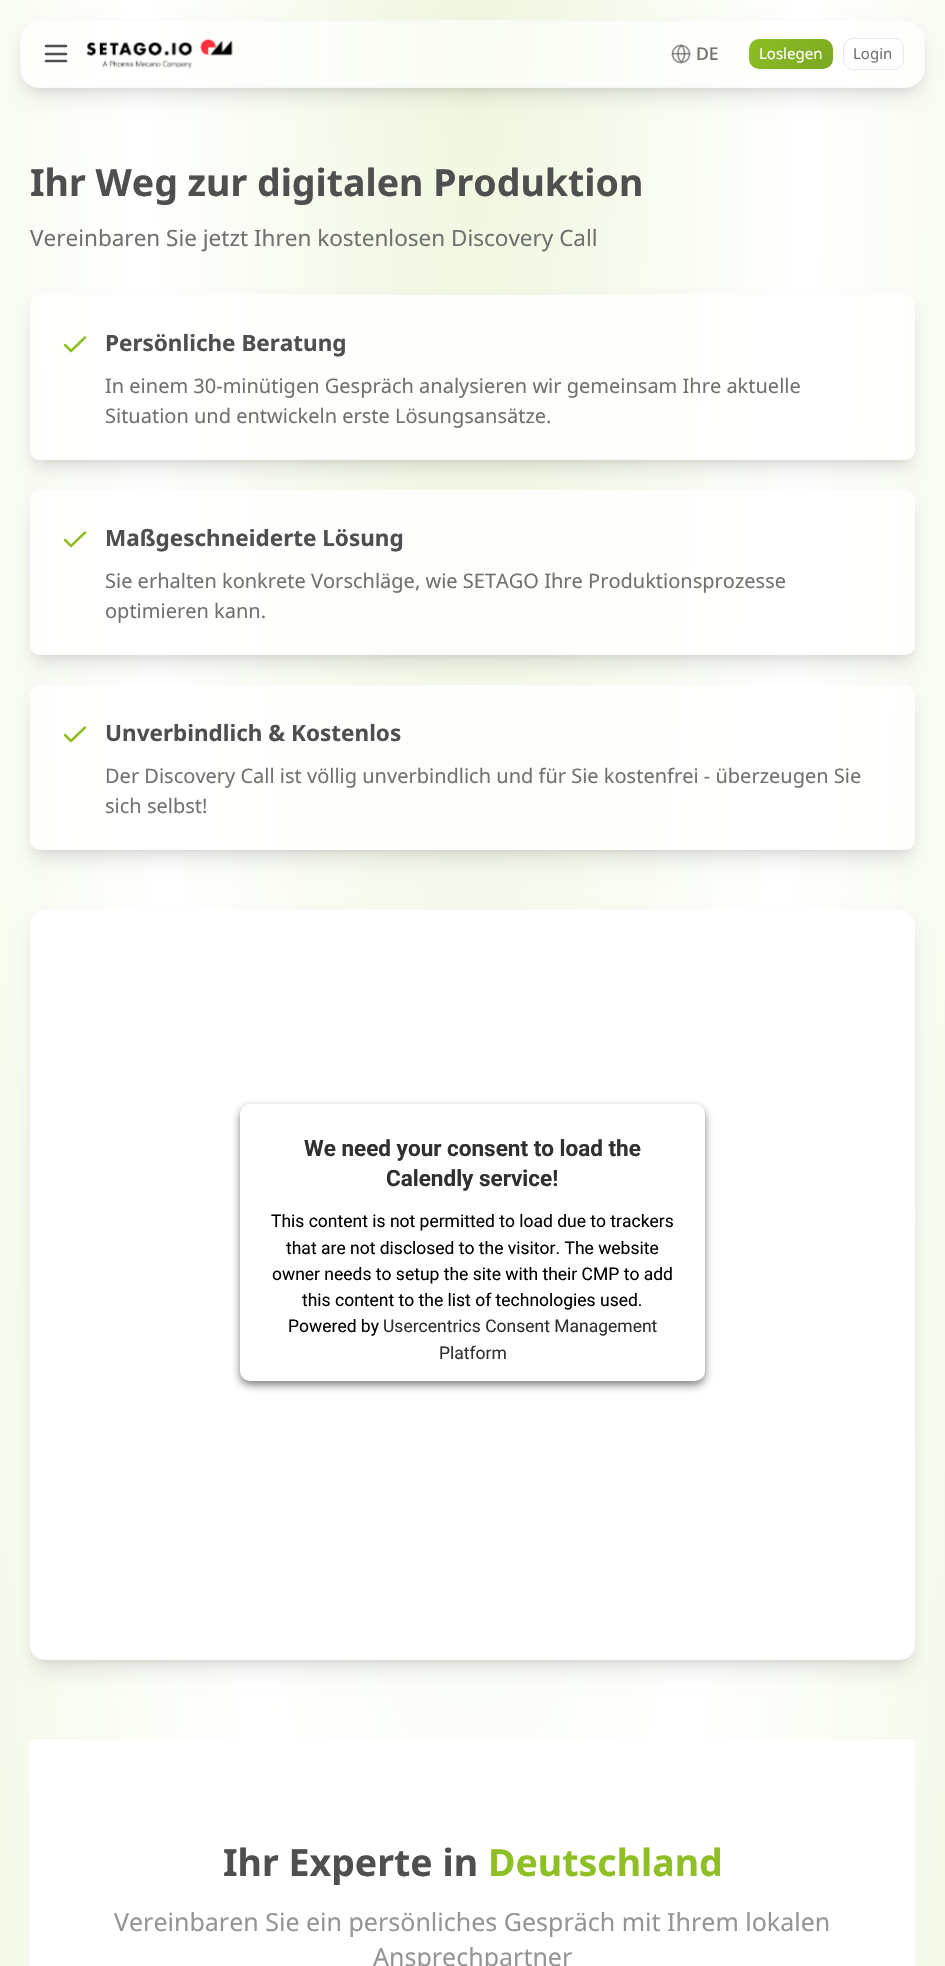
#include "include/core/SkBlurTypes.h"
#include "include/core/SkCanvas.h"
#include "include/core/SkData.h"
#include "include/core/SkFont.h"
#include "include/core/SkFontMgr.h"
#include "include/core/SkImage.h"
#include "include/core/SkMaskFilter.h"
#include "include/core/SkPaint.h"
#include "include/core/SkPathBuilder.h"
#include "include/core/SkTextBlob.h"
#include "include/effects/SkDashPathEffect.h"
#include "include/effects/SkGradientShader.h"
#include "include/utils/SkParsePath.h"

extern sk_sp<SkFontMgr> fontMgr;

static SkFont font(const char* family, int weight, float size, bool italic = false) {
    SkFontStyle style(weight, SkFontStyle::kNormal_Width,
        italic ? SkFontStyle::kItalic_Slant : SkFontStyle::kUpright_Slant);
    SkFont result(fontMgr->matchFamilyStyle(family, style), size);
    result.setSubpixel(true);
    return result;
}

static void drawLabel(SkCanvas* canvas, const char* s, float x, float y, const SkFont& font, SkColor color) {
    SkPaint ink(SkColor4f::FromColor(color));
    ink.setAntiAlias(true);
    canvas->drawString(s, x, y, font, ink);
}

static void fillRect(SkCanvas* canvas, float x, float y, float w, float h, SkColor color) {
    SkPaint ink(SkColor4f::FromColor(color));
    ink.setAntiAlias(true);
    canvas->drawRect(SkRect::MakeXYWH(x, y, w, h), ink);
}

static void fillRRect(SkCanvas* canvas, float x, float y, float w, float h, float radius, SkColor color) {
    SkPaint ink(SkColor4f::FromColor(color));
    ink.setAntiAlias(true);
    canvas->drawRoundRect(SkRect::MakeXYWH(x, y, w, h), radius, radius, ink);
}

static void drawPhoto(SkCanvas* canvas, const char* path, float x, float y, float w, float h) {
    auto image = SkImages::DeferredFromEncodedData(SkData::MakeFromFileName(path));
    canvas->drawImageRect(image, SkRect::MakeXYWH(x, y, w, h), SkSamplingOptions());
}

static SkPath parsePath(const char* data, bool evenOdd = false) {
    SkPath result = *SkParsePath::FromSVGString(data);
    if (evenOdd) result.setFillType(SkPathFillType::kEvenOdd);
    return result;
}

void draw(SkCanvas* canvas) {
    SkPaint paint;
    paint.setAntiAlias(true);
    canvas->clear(0xFFFFFFFF);
    {
        const SkColor colors[] = {0xFFEFF7DF, 0xFFFFFFFF, 0xFFEFF7DF};
        const float stops[] = {0, 0.5f, 1};
        SkMatrix m = SkMatrix::Translate(473, 0).preScale(668, 4388);
        paint.setShader(SkGradientShader::MakeRadial({0, 0}, 1, colors, stops, 3, SkTileMode::kClamp, 0, &m));
        paint.setAlpha(255);
    }
    canvas->drawRect(SkRect::MakeXYWH(0, 0, 945, 1966), paint);
    canvas->save();
    canvas->clipPath(parsePath("M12 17H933V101H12ZM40 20H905C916 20 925 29 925 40V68C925 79 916 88 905 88H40C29 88 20 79 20 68V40C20 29 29 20 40 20Z", true), true);
    paint.setShader(nullptr);
    paint.setColor(0x1A000000);
    paint.setMaskFilter(SkMaskFilter::MakeBlur(kNormal_SkBlurStyle, 4));
    canvas->drawRoundRect(SkRect::MakeXYWH(25, 30, 895, 58), 15, 15, paint);
    paint.setMaskFilter(nullptr);
    canvas->restore();
    canvas->save();
    canvas->clipPath(parsePath("M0 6H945V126H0ZM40 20H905C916 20 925 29 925 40V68C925 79 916 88 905 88H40C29 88 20 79 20 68V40C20 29 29 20 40 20Z", true), true);
    paint.setMaskFilter(SkMaskFilter::MakeBlur(kNormal_SkBlurStyle, 9.5f));
    canvas->drawRoundRect(SkRect::MakeXYWH(24, 36, 897, 60), 16, 16, paint);
    paint.setMaskFilter(nullptr);
    canvas->restore();
    fillRRect(canvas, 20, 20, 905, 68, 20, 0x99FFFFFF);
    paint.setStroke(true);
    paint.setStrokeWidth(1);
    paint.setColor(0x33E5E7EB);
    canvas->drawRoundRect(SkRect::MakeXYWH(20.5f, 20.5f, 904, 67), 19.5f, 19.5f, paint);
    paint.setStrokeWidth(2.5f);
    paint.setStrokeCap(SkPaint::kRound_Cap);
    paint.setStrokeJoin(SkPaint::kRound_Join);
    paint.setColor(0xFF4F4F4F);
    canvas->drawPath(parsePath("M46 54H66M46 46H66M46 61H66"), paint);
    drawPhoto(canvas, "assets/img1.png", 86, 38, 147, 31);
    drawPhoto(canvas, "assets/img2.png", 671, 44, 20, 20);
    SkFont font1 = font("Noto Sans", 500, 17.5f);
    drawLabel(canvas, "DE", 696, 60, font1, 0xFF71716F);
    paint.setStroke(false);
    {
        const SkColor colors[] = {0xFF8EBF25, 0xFF7AA820};
        const float stops[] = {0, 1};
        const SkPoint ends[] = {{762, 25}, {819, 82}};
        paint.setShader(SkGradientShader::MakeLinear(ends, colors, stops, 2, SkTileMode::kClamp));
        paint.setAlpha(255);
    }
    canvas->drawRoundRect(SkRect::MakeXYWH(749, 39, 84, 30), 10, 10, paint);
    SkFont font2 = font("Noto Sans", 400, 15);
    drawLabel(canvas, "Loslegen", 759, 59, font2, 0xFFFFFFFF);
    paint.setShader(nullptr);
    paint.setColor(0xFFFFFFFF);
    canvas->drawRoundRect(SkRect::MakeXYWH(843.5f, 38.5f, 60, 31), 9.5f, 9.5f, paint);
    paint.setStroke(true);
    paint.setStrokeWidth(1);
    paint.setStrokeCap(SkPaint::kButt_Cap);
    paint.setStrokeJoin(SkPaint::kMiter_Join);
    paint.setColor(0xFFE5E7EB);
    canvas->drawRoundRect(SkRect::MakeXYWH(843.5f, 38.5f, 60, 31), 9.5f, 9.5f, paint);
    drawLabel(canvas, "Login", 853, 59, font2, 0xFF71716F);
    SkFont font3 = font("Noto Sans", 700, 37.5f);
    drawLabel(canvas, "Ihr Weg zur digitalen Produktion", 30, 196, font3, 0xFF4F4F4F);
    SkFont font4 = font("Noto Sans", 400, 22.5f);
    drawLabel(canvas, "Vereinbaren Sie jetzt Ihren kostenlosen Discovery Call", 30, 246, font4, 0xFF71716F);
    canvas->save();
    canvas->clipPath(parsePath("M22 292H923V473H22ZM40 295H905C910.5 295 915 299.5 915 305V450C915 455.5 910.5 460 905 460H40C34.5 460 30 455.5 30 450V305C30 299.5 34.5 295 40 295Z", true), true);
    paint.setStroke(false);
    paint.setColor(0x1A000000);
    paint.setMaskFilter(SkMaskFilter::MakeBlur(kNormal_SkBlurStyle, 4));
    canvas->drawRoundRect(SkRect::MakeXYWH(35, 305, 875, 155), 5, 5, paint);
    paint.setMaskFilter(nullptr);
    canvas->restore();
    canvas->save();
    canvas->clipPath(parsePath("M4 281H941V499H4ZM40 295H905C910.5 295 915 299.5 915 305V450C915 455.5 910.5 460 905 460H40C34.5 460 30 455.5 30 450V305C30 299.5 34.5 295 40 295Z", true), true);
    paint.setMaskFilter(SkMaskFilter::MakeBlur(kNormal_SkBlurStyle, 9.5f));
    canvas->drawRoundRect(SkRect::MakeXYWH(34, 311, 877, 158), 6, 6, paint);
    paint.setMaskFilter(nullptr);
    canvas->restore();
    fillRRect(canvas, 30, 295, 885, 165, 10, 0xCCFFFFFF);
    paint.setStroke(true);
    paint.setStrokeWidth(2.5f);
    paint.setStrokeCap(SkPaint::kRound_Cap);
    paint.setStrokeJoin(SkPaint::kRound_Join);
    paint.setColor(0xFF8EBF25);
    canvas->drawPath(parsePath("M85 337.5L71 351L65 345"), paint);
    SkFont font5 = font("Noto Sans", 700, 22.5f);
    drawLabel(canvas, "Persönliche Beratung", 105, 351, font5, 0xFF4F4F4F);
    SkFont font6 = font("Noto Sans", 400, 20);
    drawLabel(canvas, "In einem 30-minütigen Gespräch analysieren wir gemeinsam Ihre aktuelle", 105, 393, font6, 0xFF71716F);
    drawLabel(canvas, "Situation und entwickeln erste Lösungsansätze.", 105, 423, font6, 0xFF71716F);
    canvas->save();
    canvas->clipPath(parsePath("M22 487H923V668H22ZM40 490H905C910.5 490 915 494.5 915 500V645C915 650.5 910.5 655 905 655H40C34.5 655 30 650.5 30 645V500C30 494.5 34.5 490 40 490Z", true), true);
    paint.setStroke(false);
    paint.setColor(0x1A000000);
    paint.setMaskFilter(SkMaskFilter::MakeBlur(kNormal_SkBlurStyle, 4));
    canvas->drawRoundRect(SkRect::MakeXYWH(35, 500, 875, 155), 5, 5, paint);
    paint.setMaskFilter(nullptr);
    canvas->restore();
    canvas->save();
    canvas->clipPath(parsePath("M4 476H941V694H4ZM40 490H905C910.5 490 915 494.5 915 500V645C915 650.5 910.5 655 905 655H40C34.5 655 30 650.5 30 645V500C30 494.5 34.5 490 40 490Z", true), true);
    paint.setMaskFilter(SkMaskFilter::MakeBlur(kNormal_SkBlurStyle, 9.5f));
    canvas->drawRoundRect(SkRect::MakeXYWH(34, 506, 877, 158), 6, 6, paint);
    paint.setMaskFilter(nullptr);
    canvas->restore();
    fillRRect(canvas, 30, 490, 885, 165, 10, 0xCCFFFFFF);
    paint.setStroke(true);
    paint.setColor(0xFF8EBF25);
    canvas->drawPath(parsePath("M85 532.5L71 546L65 540"), paint);
    drawLabel(canvas, "Maßgeschneiderte Lösung", 105, 546, font5, 0xFF4F4F4F);
    drawLabel(canvas, "Sie erhalten konkrete Vorschläge, wie SETAGO Ihre Produktionsprozesse", 105, 588, font6, 0xFF71716F);
    drawLabel(canvas, "optimieren kann.", 105, 618, font6, 0xFF71716F);
    canvas->save();
    canvas->clipPath(parsePath("M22 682H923V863H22ZM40 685H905C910.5 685 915 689.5 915 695V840C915 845.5 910.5 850 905 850H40C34.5 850 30 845.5 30 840V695C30 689.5 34.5 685 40 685Z", true), true);
    paint.setStroke(false);
    paint.setColor(0x1A000000);
    paint.setMaskFilter(SkMaskFilter::MakeBlur(kNormal_SkBlurStyle, 4));
    canvas->drawRoundRect(SkRect::MakeXYWH(35, 695, 875, 155), 5, 5, paint);
    paint.setMaskFilter(nullptr);
    canvas->restore();
    canvas->save();
    canvas->clipPath(parsePath("M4 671H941V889H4ZM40 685H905C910.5 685 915 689.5 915 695V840C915 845.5 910.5 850 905 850H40C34.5 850 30 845.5 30 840V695C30 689.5 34.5 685 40 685Z", true), true);
    paint.setMaskFilter(SkMaskFilter::MakeBlur(kNormal_SkBlurStyle, 9.5f));
    canvas->drawRoundRect(SkRect::MakeXYWH(34, 701, 877, 158), 6, 6, paint);
    paint.setMaskFilter(nullptr);
    canvas->restore();
    fillRRect(canvas, 30, 685, 885, 165, 10, 0xCCFFFFFF);
    paint.setStroke(true);
    paint.setColor(0xFF8EBF25);
    canvas->drawPath(parsePath("M85 727.5L71 741L65 735"), paint);
    drawLabel(canvas, "Unverbindlich & Kostenlos", 105, 741, font5, 0xFF4F4F4F);
    drawLabel(canvas, "Der Discovery Call ist völlig unverbindlich und für Sie kostenfrei - überzeugen Sie", 105, 783, font6, 0xFF71716F);
    drawLabel(canvas, "sich selbst!", 105, 813, font6, 0xFF71716F);
    paint.setStroke(false);
    paint.setColor(0x1A000000);
    paint.setMaskFilter(SkMaskFilter::MakeBlur(kNormal_SkBlurStyle, 4));
    canvas->drawRoundRect(SkRect::MakeXYWH(35, 920, 875, 740), 10, 10, paint);
    paint.setMaskFilter(nullptr);
    paint.setMaskFilter(SkMaskFilter::MakeBlur(kNormal_SkBlurStyle, 9.5f));
    canvas->drawRoundRect(SkRect::MakeXYWH(34, 926, 877, 743), 11, 11, paint);
    paint.setMaskFilter(nullptr);
    fillRRect(canvas, 30, 910, 885, 750, 15, 0xFFFFFFFF);
    paint.setColor(0x80000000);
    paint.setMaskFilter(SkMaskFilter::MakeBlur(kNormal_SkBlurStyle, 4));
    canvas->drawRoundRect(SkRect::MakeXYWH(240, 1108, 465, 277), 10, 10, paint);
    paint.setMaskFilter(nullptr);
    fillRRect(canvas, 240, 1104, 465, 277, 10, 0xFFFFFFFF);
    SkFont font7 = font("Roboto", 700, 22.5f);
    drawLabel(canvas, "We need your consent to load the", 304, 1156, font7, 0xFF303030);
    drawLabel(canvas, "Calendly service!", 386, 1186, font7, 0xFF303030);
    SkFont font8 = font("Roboto", 400, 17.5f);
    drawLabel(canvas, "This content is not permitted to load due to trackers", 271, 1227, font8, 0xFF000000);
    drawLabel(canvas, "that are not disclosed to the visitor. The website", 286, 1254, font8, 0xFF000000);
    drawLabel(canvas, "owner needs to setup the site with their CMP to add", 272, 1280, font8, 0xFF000000);
    drawLabel(canvas, "this content to the list of technologies used.", 302, 1306, font8, 0xFF000000);
    drawLabel(canvas, "Powered by", 288, 1332, font8, 0xFF000000);
    drawLabel(canvas, "Usercentrics Consent Management", 383, 1332, font8, 0xFF303030);
    drawLabel(canvas, "Platform", 439, 1359, font8, 0xFF303030);
    fillRect(canvas, 30, 1740, 885, 226, 0xFFFFFFFF);
    drawLabel(canvas, "Ihr Experte in", 223, 1876, font3, 0xFF4F4F4F);
    drawLabel(canvas, "Deutschland", 488, 1876, font3, 0xFF8EBF25);
    SkFont font9 = font("Noto Sans", 400, 25);
    drawLabel(canvas, "Vereinbaren Sie ein persönliches Gespräch mit Ihrem lokalen", 114, 1931, font9, 0xFF959595);
    drawLabel(canvas, "Ansprechpartner", 373, 1966, font9, 0xFF959595);
}
